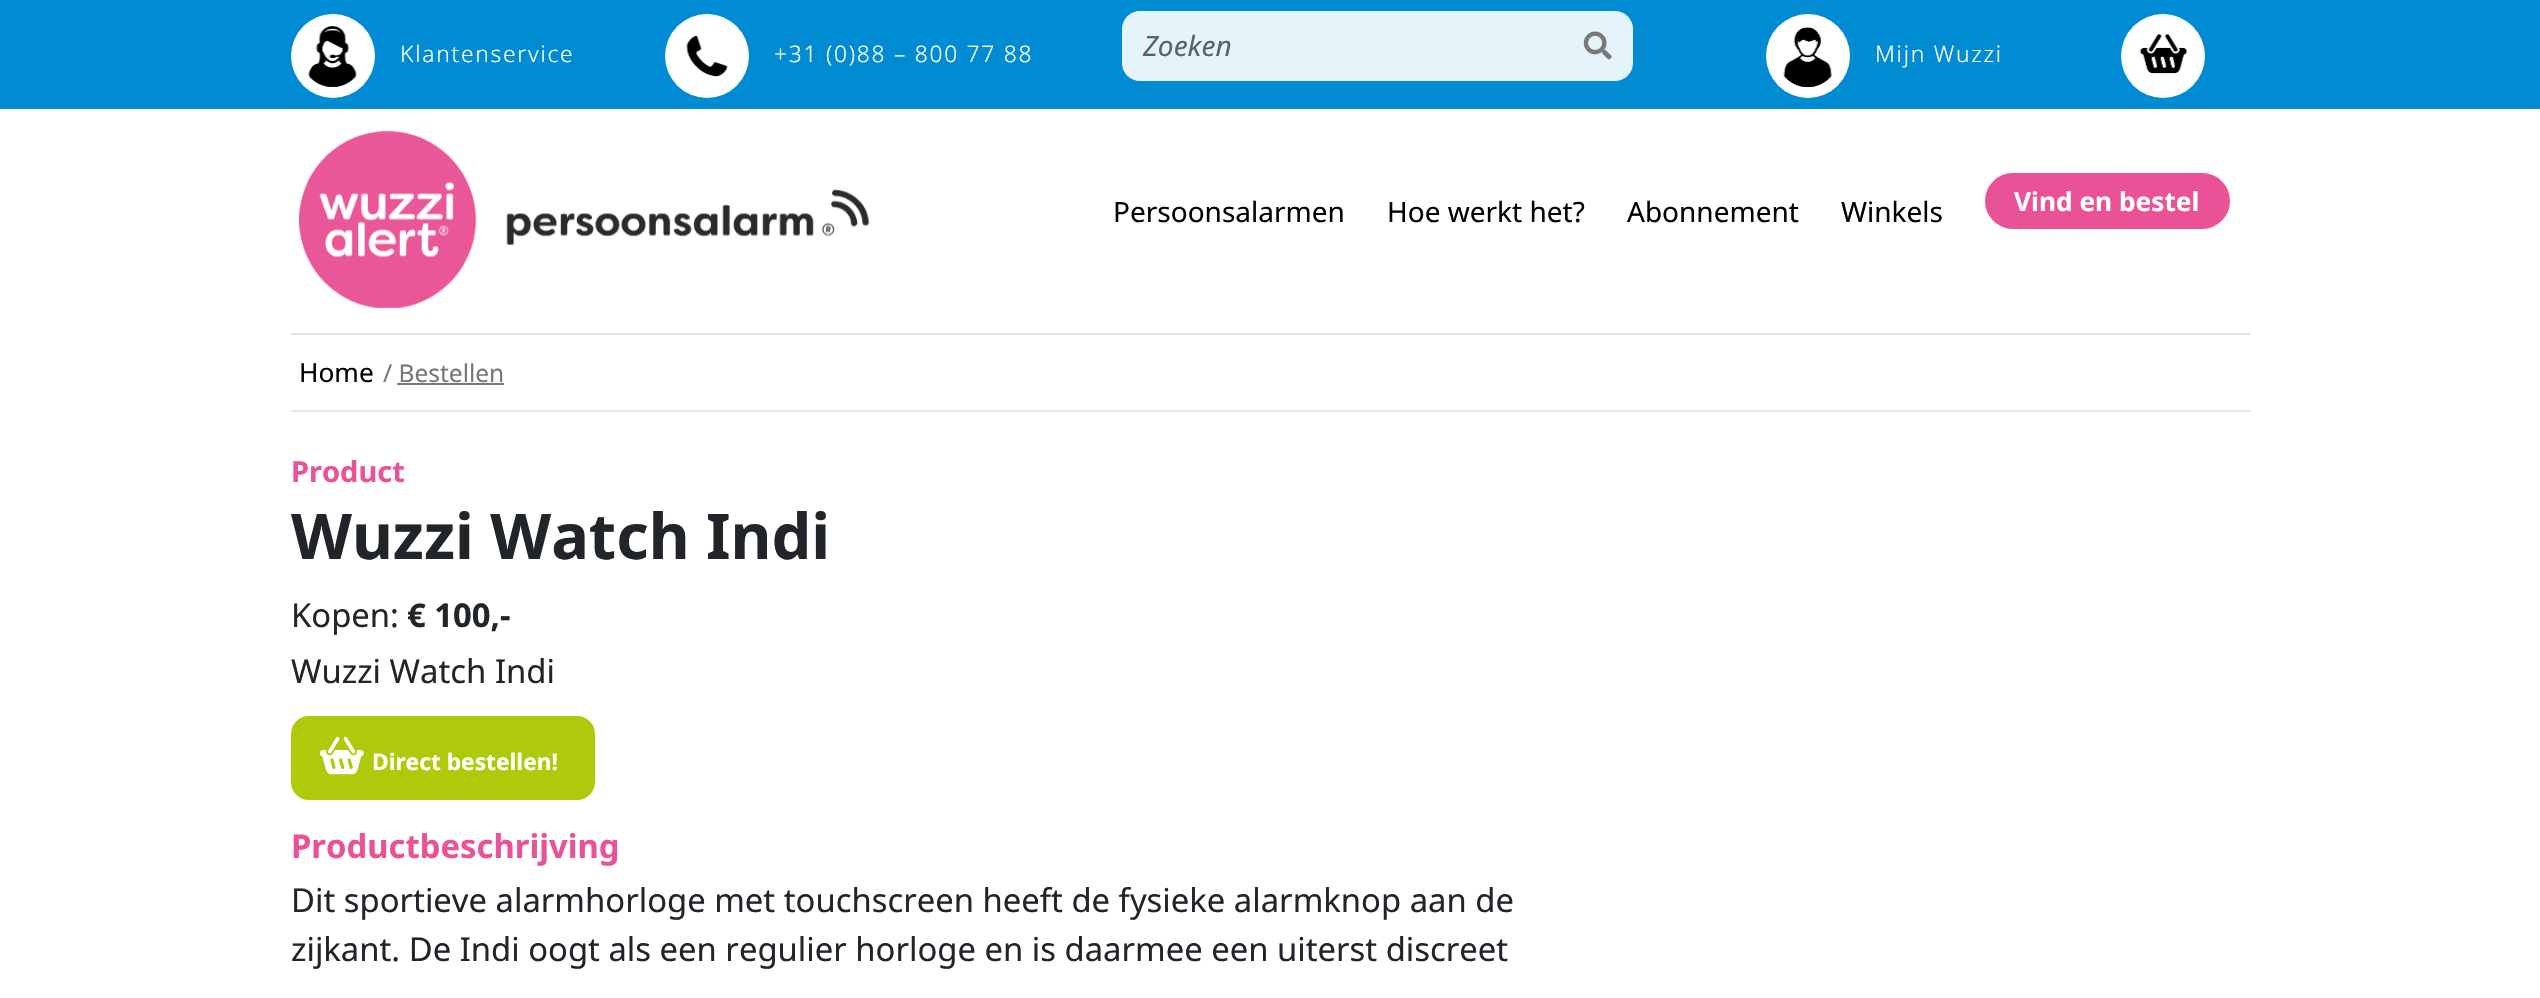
#include "include/core/SkBlurTypes.h"
#include "include/core/SkCanvas.h"
#include "include/core/SkData.h"
#include "include/core/SkFont.h"
#include "include/core/SkFontMgr.h"
#include "include/core/SkImage.h"
#include "include/core/SkMaskFilter.h"
#include "include/core/SkPaint.h"
#include "include/core/SkPathBuilder.h"
#include "include/core/SkTextBlob.h"
#include "include/effects/SkDashPathEffect.h"
#include "include/effects/SkGradientShader.h"
#include "include/utils/SkParsePath.h"

extern sk_sp<SkFontMgr> fontMgr;

static SkFont font(const char* family, int weight, float size, bool italic = false) {
    SkFontStyle style(weight, SkFontStyle::kNormal_Width,
        italic ? SkFontStyle::kItalic_Slant : SkFontStyle::kUpright_Slant);
    SkFont result(fontMgr->matchFamilyStyle(family, style), size);
    result.setSubpixel(true);
    return result;
}

static void drawLabel(SkCanvas* canvas, const char* s, float x, float y, const SkFont& font, SkColor color) {
    SkPaint ink(SkColor4f::FromColor(color));
    ink.setAntiAlias(true);
    canvas->drawString(s, x, y, font, ink);
}

static void drawTracked(SkCanvas* canvas, const char* s, float x, float y, const SkFont& font, const SkPaint& ink, float letter, float word) {
    std::vector<SkGlyphID> glyphs(font.countText(s, strlen(s), SkTextEncoding::kUTF8));
    std::vector<float> xs(glyphs.size());
    font.textToGlyphs(s, strlen(s), SkTextEncoding::kUTF8, glyphs);
    font.getXPos(glyphs, xs, x);
    float extra = 0;
    for (size_t i = 0; i < glyphs.size(); i++) {
        xs[i] += extra;
        extra += letter + word * (glyphs[i] == font.unicharToGlyph(' '));
    }
    canvas->drawTextBlob(SkTextBlob::MakeFromPosHGlyphs(glyphs, xs, y, font), 0, 0, ink);
}

static void fillRect(SkCanvas* canvas, float x, float y, float w, float h, SkColor color) {
    SkPaint ink(SkColor4f::FromColor(color));
    ink.setAntiAlias(true);
    canvas->drawRect(SkRect::MakeXYWH(x, y, w, h), ink);
}

static void fillRRect(SkCanvas* canvas, float x, float y, float w, float h, float radius, SkColor color) {
    SkPaint ink(SkColor4f::FromColor(color));
    ink.setAntiAlias(true);
    canvas->drawRoundRect(SkRect::MakeXYWH(x, y, w, h), radius, radius, ink);
}

static void drawPhoto(SkCanvas* canvas, const char* path, float x, float y, float w, float h) {
    auto image = SkImages::DeferredFromEncodedData(SkData::MakeFromFileName(path));
    canvas->drawImageRect(image, SkRect::MakeXYWH(x, y, w, h), SkSamplingOptions());
}

static SkPath parsePath(const char* data, bool evenOdd = false) {
    SkPath result = *SkParsePath::FromSVGString(data);
    if (evenOdd) result.setFillType(SkPathFillType::kEvenOdd);
    return result;
}

void draw(SkCanvas* canvas) {
    SkPaint paint;
    paint.setAntiAlias(true);
    canvas->clear(0xFFFFFFFF);
    fillRect(canvas, 0, 0, 2540, 109, 0xFF008BD2);
    paint.setColor(0xFFFFFFFF);
    canvas->drawCircle(333, 56, 42, paint);
    drawPhoto(canvas, "assets/img1.png", 308, 26, 49, 61);
    SkFont font1 = font("Noto Sans", 300, 22.75f);
    drawTracked(canvas, "Klantenservice", 400, 62, font1, paint, 1.75f, 0);
    canvas->drawCircle(707, 56, 42, paint);
    drawPhoto(canvas, "assets/img2.png", 686, 35, 42, 42);
    drawTracked(canvas, "+31 (0)88 – 800 77 88", 774, 62, font1, paint, 1.75f, 0);
    paint.setColor(0xFFE5F3FA);
    canvas->drawPath(parsePath("M1140 11H1565V81H1140C1130 81 1122 73 1122 63V29C1122 19 1130 11 1140 11Z"), paint);
    SkFont font2 = font("Noto Sans", 400, 28, true);
    drawLabel(canvas, "Zoeken", 1143, 56, font2, 0xFF5C6164);
    canvas->drawPath(parsePath("M1563 11H1615C1625 11 1633 19 1633 29V63C1633 73 1625 81 1615 81H1563Z"), paint);
    drawPhoto(canvas, "assets/img3.png", 1583, 31, 29, 29);
    paint.setColor(0xFFFFFFFF);
    canvas->drawCircle(1808, 56, 42, paint);
    drawPhoto(canvas, "assets/img4.png", 1783, 27, 49, 61);
    drawTracked(canvas, "Mijn Wuzzi", 1875, 62, font1, paint, 1.75f, 0);
    canvas->drawCircle(2163, 56, 42, paint);
    drawPhoto(canvas, "assets/img5.png", 2139, 34, 48, 40);
    drawPhoto(canvas, "assets/img6.png", 299, 131, 571, 177);
    SkFont font3 = font("Noto Sans", 400, 28);
    drawLabel(canvas, "Persoonsalarmen", 1113, 222, font3, 0xFF000000);
    drawLabel(canvas, "Hoe werkt het?", 1387, 222, font3, 0xFF000000);
    drawLabel(canvas, "Abonnement", 1627, 222, font3, 0xFF000000);
    drawLabel(canvas, "Winkels", 1841, 222, font3, 0xFF000000);
    paint.setColor(0xFFEA5297);
    canvas->drawRoundRect(SkRect::MakeXYWH(1986, 174, 243, 54), 27, 27, paint);
    paint.setStroke(true);
    paint.setStrokeWidth(2);
    canvas->drawRoundRect(SkRect::MakeXYWH(1986, 174, 243, 54), 27, 27, paint);
    SkFont font4 = font("Noto Sans", 700, 26.25f);
    drawLabel(canvas, "Vind en bestel", 2014, 211, font4, 0xFFFFFFFF);
    fillRect(canvas, 291, 333, 1960, 2, 0xFFE4E4E4);
    fillRect(canvas, 291, 410, 1960, 2, 0xFFE4E4E4);
    SkFont font5 = font("Noto Sans", 400, 26.25f);
    drawLabel(canvas, "Home", 299, 382, font5, 0xFF000000);
    SkFont font6 = font("Noto Sans", 400, 24.5f);
    drawLabel(canvas, "/ Bestellen", 383, 382, font6, 0xFF787878);
    fillRect(canvas, 397, 383, 107, 2, 0xFF787878);
    SkFont font7 = font("Noto Sans", 700, 29);
    drawLabel(canvas, "Product", 291, 482, font7, 0xFFEA5297);
    SkFont font8 = font("Noto Sans", 700, 63);
    drawLabel(canvas, "Wuzzi Watch Indi", 291, 559, font8, 0xFF212529);
    SkFont font9 = font("Noto Sans", 400, 32.8f);
    drawLabel(canvas, "Kopen:", 291, 627, font9, 0xFF212529);
    SkFont font10 = font("Noto Sans", 700, 32.8f);
    drawLabel(canvas, "€ 100,-", 407, 627, font10, 0xFF212529);
    drawLabel(canvas, "Wuzzi Watch Indi", 291, 683, font9, 0xFF212529);
    fillRRect(canvas, 291, 716, 304, 84, 18, 0xFFAFCA0B);
    drawPhoto(canvas, "assets/img7.png", 319, 736, 45, 39);
    SkFont font11 = font("Noto Sans", 700, 22.75f);
    drawLabel(canvas, "Direct bestellen!", 372, 770, font11, 0xFFFFFFFF);
    drawLabel(canvas, "Productbeschrijving", 291, 858, font10, 0xFFEA5297);
    drawLabel(canvas, "Dit sportieve alarmhorloge met touchscreen heeft de fysieke alarmknop aan de", 291, 912, font9, 0xFF212529);
    drawLabel(canvas, "zijkant. De Indi oogt als een regulier horloge en is daarmee een uiterst discreet", 291, 961, font9, 0xFF212529);
}
